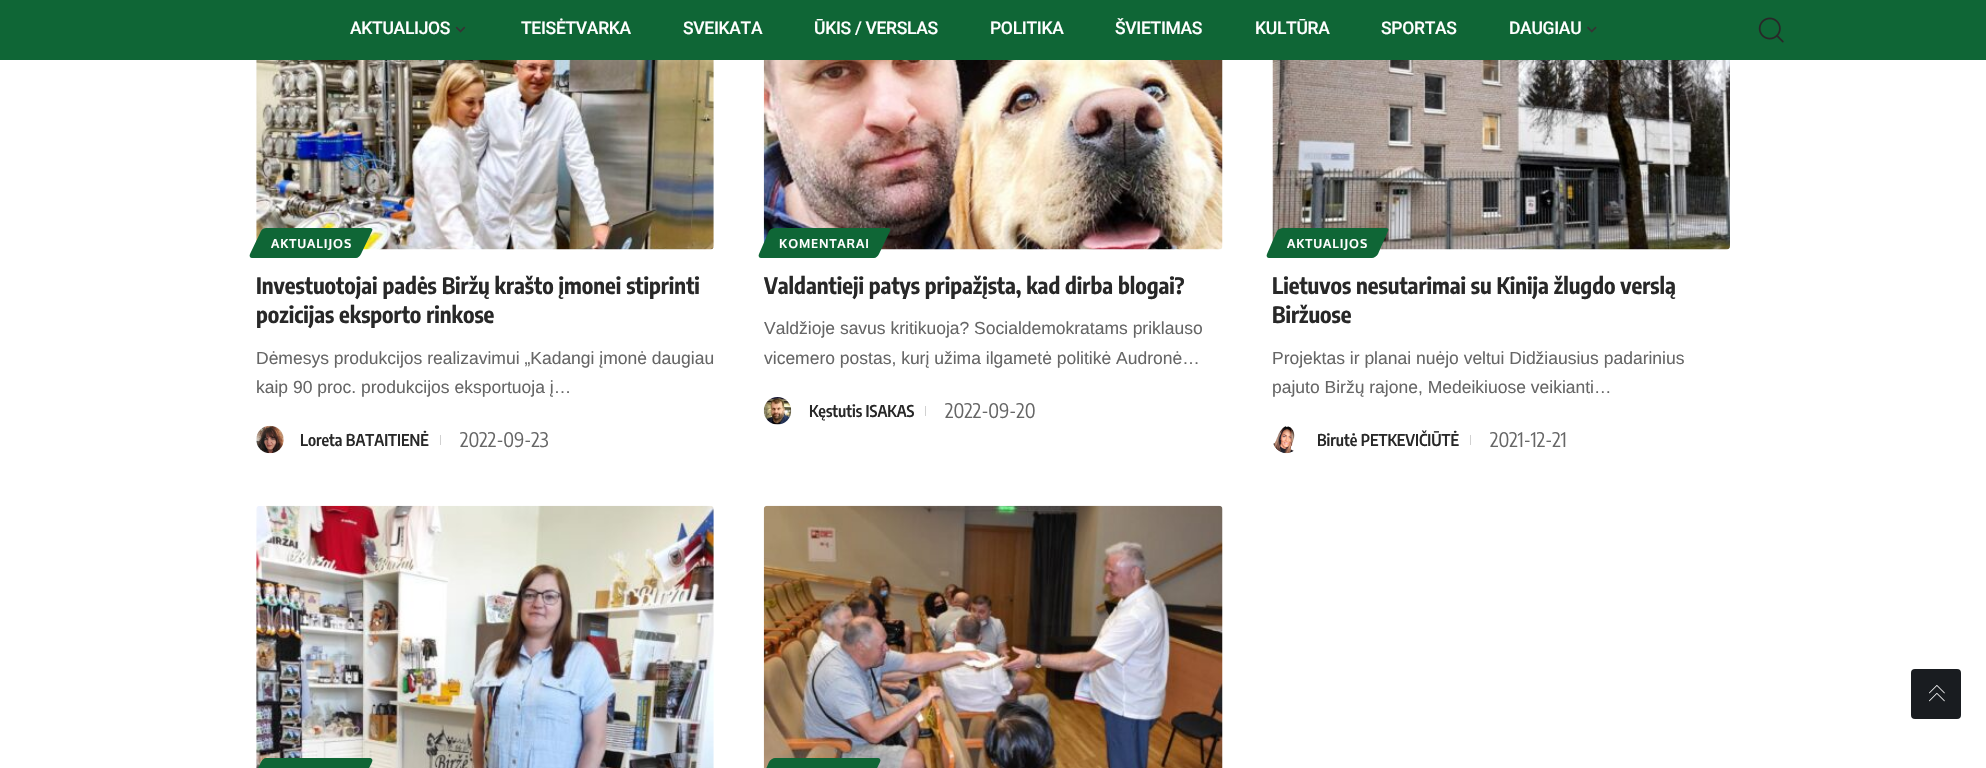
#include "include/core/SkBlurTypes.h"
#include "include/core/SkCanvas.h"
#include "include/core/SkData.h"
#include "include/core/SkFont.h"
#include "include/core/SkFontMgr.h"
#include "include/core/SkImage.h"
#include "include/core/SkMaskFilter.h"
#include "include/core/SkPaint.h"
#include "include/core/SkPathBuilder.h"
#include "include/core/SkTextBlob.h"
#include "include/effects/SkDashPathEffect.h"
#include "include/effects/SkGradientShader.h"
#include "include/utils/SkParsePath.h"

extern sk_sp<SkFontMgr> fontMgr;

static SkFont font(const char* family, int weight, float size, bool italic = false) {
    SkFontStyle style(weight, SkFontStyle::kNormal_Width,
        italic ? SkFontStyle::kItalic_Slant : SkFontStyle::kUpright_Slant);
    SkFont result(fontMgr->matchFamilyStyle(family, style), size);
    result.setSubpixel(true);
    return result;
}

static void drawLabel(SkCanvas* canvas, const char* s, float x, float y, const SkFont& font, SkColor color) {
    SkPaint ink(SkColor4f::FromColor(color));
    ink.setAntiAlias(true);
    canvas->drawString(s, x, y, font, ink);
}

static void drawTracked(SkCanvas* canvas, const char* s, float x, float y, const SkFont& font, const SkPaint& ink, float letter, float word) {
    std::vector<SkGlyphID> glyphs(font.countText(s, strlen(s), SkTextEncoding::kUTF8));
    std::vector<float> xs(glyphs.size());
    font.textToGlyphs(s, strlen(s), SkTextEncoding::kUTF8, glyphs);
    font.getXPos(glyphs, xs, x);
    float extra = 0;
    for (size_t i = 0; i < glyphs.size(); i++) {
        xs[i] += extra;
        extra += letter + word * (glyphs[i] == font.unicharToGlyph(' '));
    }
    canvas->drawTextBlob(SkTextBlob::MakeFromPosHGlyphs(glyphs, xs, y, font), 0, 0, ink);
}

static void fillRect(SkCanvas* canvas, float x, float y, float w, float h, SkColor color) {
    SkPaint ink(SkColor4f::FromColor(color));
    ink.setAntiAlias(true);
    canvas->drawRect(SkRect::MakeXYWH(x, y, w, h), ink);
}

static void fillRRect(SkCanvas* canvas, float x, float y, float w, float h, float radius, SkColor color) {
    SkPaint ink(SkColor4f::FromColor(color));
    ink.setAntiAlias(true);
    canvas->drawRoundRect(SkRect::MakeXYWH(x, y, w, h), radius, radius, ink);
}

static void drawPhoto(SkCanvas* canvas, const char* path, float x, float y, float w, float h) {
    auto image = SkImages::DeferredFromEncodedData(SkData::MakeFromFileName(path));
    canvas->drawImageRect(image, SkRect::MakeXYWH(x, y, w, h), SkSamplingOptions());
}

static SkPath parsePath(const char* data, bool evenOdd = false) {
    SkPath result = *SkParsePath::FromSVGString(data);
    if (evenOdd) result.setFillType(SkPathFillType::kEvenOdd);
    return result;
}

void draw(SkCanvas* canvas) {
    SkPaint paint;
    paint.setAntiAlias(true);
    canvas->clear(0xFFFFFFFF);
    fillRect(canvas, 0, 0, 1986, 60, 0xFF0F6636);
    SkFont font1 = font("Roboto", 500, 17.5f);
    paint.setColor(0xFFFFFFFF);
    drawTracked(canvas, "AKTUALIJOS", 350, 34, font1, paint, -0.3f, 0);
    drawPhoto(canvas, "assets/img1.png", 455, 26, 11, 7);
    drawTracked(canvas, "TEISĖTVARKA", 521, 34, font1, paint, -0.3f, 0);
    drawTracked(canvas, "SVEIKATA", 683, 34, font1, paint, -0.3f, 0);
    drawTracked(canvas, "ŪKIS / VERSLAS", 814, 34, font1, paint, -0.3f, 0);
    drawTracked(canvas, "POLITIKA", 990, 34, font1, paint, -0.3f, 0);
    drawTracked(canvas, "ŠVIETIMAS", 1115, 34, font1, paint, -0.3f, 0);
    drawTracked(canvas, "KULTŪRA", 1255, 34, font1, paint, -0.3f, 0);
    drawTracked(canvas, "SPORTAS", 1381, 34, font1, paint, -0.3f, 0);
    drawTracked(canvas, "DAUGIAU", 1509, 34, font1, paint, -0.3f, 0);
    drawPhoto(canvas, "assets/img2.png", 1587, 26, 10, 7);
    drawPhoto(canvas, "assets/img3.png", 1758, 17, 26, 26);
    drawPhoto(canvas, "assets/img4.png", 256, 60, 458, 190);
    paint.setColor(0xFF0F6636);
    canvas->drawPath(parsePath("M266 228H370C372 228 373 229 372 231L361 254C360 256 358 258 356 258H252C250 258 249 256 250 254L261 231C262 229 264 228 266 228Z"), paint);
    SkFont font2 = font("Oxygen", 700, 12.5f);
    paint.setColor(0xFFFFFFFF);
    drawTracked(canvas, "AKTUALIJOS", 271, 248, font2, paint, 0.9f, 0);
    SkFont font3 = font("Encode Sans Condensed", 700, 22.5f);
    drawLabel(canvas, "Investuotojai padės Biržų krašto įmonei stiprinti", 256, 294, font3, 0xFF282828);
    drawLabel(canvas, "pozicijas eksporto rinkose", 256, 323, font3, 0xFF282828);
    SkFont font4 = font("Liberation Sans", 400, 17.5f);
    drawLabel(canvas, "Dėmesys produkcijos realizavimui „Kadangi įmonė daugiau", 256, 364, font4, 0xFF666666);
    drawLabel(canvas, "kaip 90 proc. produkcijos eksportuoja į…", 256, 393, font4, 0xFF666666);
    drawPhoto(canvas, "assets/img5.png", 256, 425, 28, 29);
    SkFont font5 = font("Encode Sans Condensed", 600, 16.25f);
    drawLabel(canvas, "Loreta BATAITIENĖ", 300, 446, font5, 0xFF282828);
    fillRect(canvas, 440, 435, 1, 10, 0xFFD1D1D1);
    SkFont font6 = font("Encode Sans Condensed", 400, 20);
    drawLabel(canvas, "2022-09-23", 460, 447, font6, 0xFF666666);
    drawPhoto(canvas, "assets/img6.png", 763, 60, 460, 190);
    paint.setColor(0xFF0F6636);
    canvas->drawPath(parsePath("M775 228H888C890 228 891 229 890 231L879 254C878 256 876 258 874 258H761C759 258 758 256 759 254L769 231C770 229 773 228 775 228Z"), paint);
    paint.setColor(0xFFFFFFFF);
    drawTracked(canvas, "KOMENTARAI", 779, 248, font2, paint, 0.9f, 0);
    drawLabel(canvas, "Valdantieji patys pripažįsta, kad dirba blogai?", 764, 294, font3, 0xFF282828);
    drawLabel(canvas, "Valdžioje savus kritikuoja? Socialdemokratams priklauso", 764, 334, font4, 0xFF666666);
    drawLabel(canvas, "vicemero postas, kurį užima ilgametė politikė Audronė…", 764, 364, font4, 0xFF666666);
    drawPhoto(canvas, "assets/img7.png", 763, 397, 29, 28);
    drawLabel(canvas, "Kęstutis ISAKAS", 809, 417, font5, 0xFF282828);
    fillRect(canvas, 925, 406, 1, 10, 0xFFD1D1D1);
    drawLabel(canvas, "2022-09-20", 945, 418, font6, 0xFF666666);
    drawPhoto(canvas, "assets/img8.png", 1272, 60, 458, 190);
    paint.setColor(0xFF0F6636);
    canvas->drawPath(parsePath("M1283 228H1386C1388 228 1389 229 1388 231L1378 254C1377 256 1374 258 1372 258H1269C1267 258 1266 256 1267 254L1277 231C1278 229 1281 228 1283 228Z"), paint);
    paint.setColor(0xFFFFFFFF);
    drawTracked(canvas, "AKTUALIJOS", 1287, 248, font2, paint, 0.9f, 0);
    drawLabel(canvas, "Lietuvos nesutarimai su Kinija žlugdo verslą", 1272, 294, font3, 0xFF282828);
    drawLabel(canvas, "Biržuose", 1272, 323, font3, 0xFF282828);
    drawLabel(canvas, "Projektas ir planai nuėjo veltui Didžiausius padarinius", 1272, 364, font4, 0xFF666666);
    drawLabel(canvas, "pajuto Biržų rajone, Medeikiuose veikianti…", 1272, 393, font4, 0xFF666666);
    drawPhoto(canvas, "assets/img9.png", 1273, 426, 22, 28);
    drawLabel(canvas, "Birutė PETKEVIČIŪTĖ", 1317, 446, font5, 0xFF282828);
    fillRect(canvas, 1470, 435, 1, 10, 0xFFD1D1D1);
    drawLabel(canvas, "2021-12-21", 1490, 447, font6, 0xFF666666);
    drawPhoto(canvas, "assets/img10.png", 256, 505, 458, 263);
    paint.setColor(0xFF0F6636);
    canvas->drawPath(parsePath("M266 758H370C372 758 373 760 372 762L361 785C360 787 358 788 356 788H252C250 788 249 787 250 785L261 762C262 760 264 758 266 758Z"), paint);
    drawPhoto(canvas, "assets/img11.png", 763, 505, 460, 263);
    canvas->drawPath(parsePath("M775 758H878C880 758 881 760 880 762L869 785C869 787 866 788 864 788H761C759 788 758 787 759 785L769 762C770 760 773 758 775 758Z"), paint);
    fillRRect(canvas, 1911, 669, 50, 50, 4, 0xFF191C20);
    drawPhoto(canvas, "assets/img12.png", 1929, 685, 16, 17);
}
